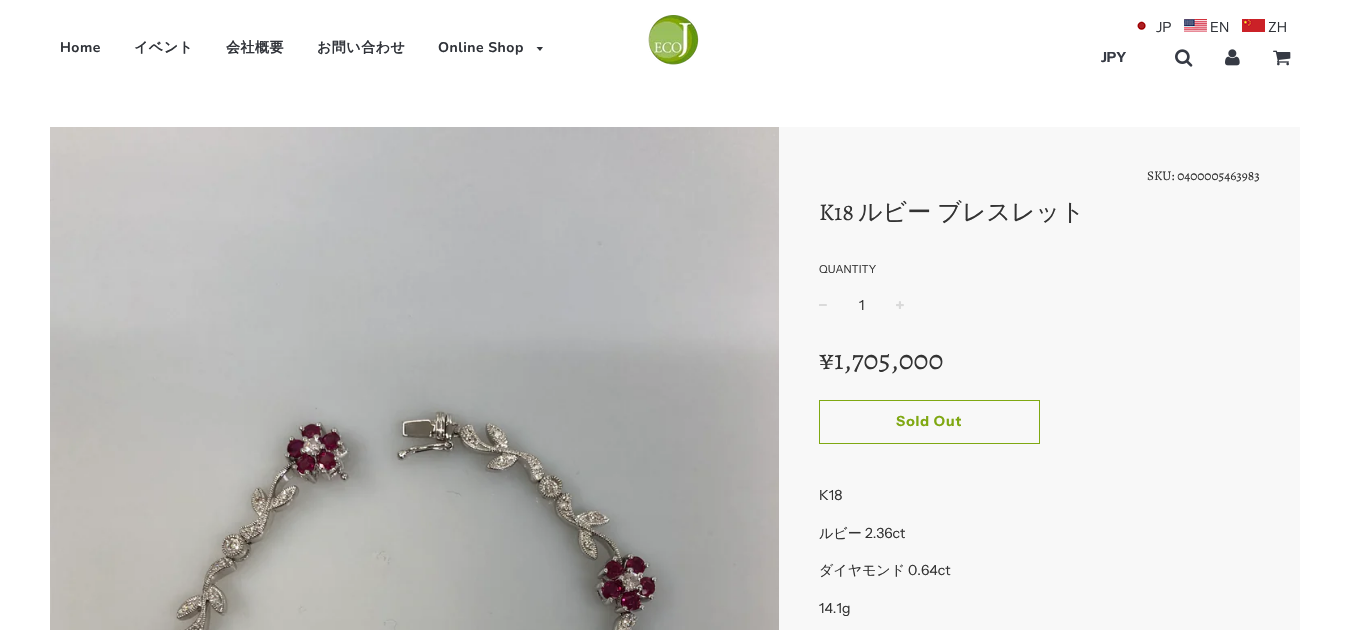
#include "include/core/SkBlurTypes.h"
#include "include/core/SkCanvas.h"
#include "include/core/SkData.h"
#include "include/core/SkFont.h"
#include "include/core/SkFontMgr.h"
#include "include/core/SkImage.h"
#include "include/core/SkMaskFilter.h"
#include "include/core/SkPaint.h"
#include "include/core/SkPathBuilder.h"
#include "include/core/SkTextBlob.h"
#include "include/effects/SkDashPathEffect.h"
#include "include/effects/SkGradientShader.h"
#include "include/utils/SkParsePath.h"

extern sk_sp<SkFontMgr> fontMgr;

static SkFont font(const char* family, int weight, float size, bool italic = false) {
    SkFontStyle style(weight, SkFontStyle::kNormal_Width,
        italic ? SkFontStyle::kItalic_Slant : SkFontStyle::kUpright_Slant);
    SkFont result(fontMgr->matchFamilyStyle(family, style), size);
    result.setSubpixel(true);
    return result;
}

static void drawLabel(SkCanvas* canvas, const char* s, float x, float y, const SkFont& font, SkColor color) {
    SkPaint ink(SkColor4f::FromColor(color));
    ink.setAntiAlias(true);
    canvas->drawString(s, x, y, font, ink);
}

static void drawTracked(SkCanvas* canvas, const char* s, float x, float y, const SkFont& font, const SkPaint& ink, float letter, float word) {
    std::vector<SkGlyphID> glyphs(font.countText(s, strlen(s), SkTextEncoding::kUTF8));
    std::vector<float> xs(glyphs.size());
    font.textToGlyphs(s, strlen(s), SkTextEncoding::kUTF8, glyphs);
    font.getXPos(glyphs, xs, x);
    float extra = 0;
    for (size_t i = 0; i < glyphs.size(); i++) {
        xs[i] += extra;
        extra += letter + word * (glyphs[i] == font.unicharToGlyph(' '));
    }
    canvas->drawTextBlob(SkTextBlob::MakeFromPosHGlyphs(glyphs, xs, y, font), 0, 0, ink);
}

static void fillRect(SkCanvas* canvas, float x, float y, float w, float h, SkColor color) {
    SkPaint ink(SkColor4f::FromColor(color));
    ink.setAntiAlias(true);
    canvas->drawRect(SkRect::MakeXYWH(x, y, w, h), ink);
}

static void drawPhoto(SkCanvas* canvas, const char* path, float x, float y, float w, float h) {
    auto image = SkImages::DeferredFromEncodedData(SkData::MakeFromFileName(path));
    canvas->drawImageRect(image, SkRect::MakeXYWH(x, y, w, h), SkSamplingOptions());
}

static SkPath parsePath(const char* data, bool evenOdd = false) {
    SkPath result = *SkParsePath::FromSVGString(data);
    if (evenOdd) result.setFillType(SkPathFillType::kEvenOdd);
    return result;
}

void draw(SkCanvas* canvas) {
    SkPaint paint;
    paint.setAntiAlias(true);
    canvas->clear(0xFFFFFFFF);
    SkFont font1 = font("Nunito", 700, 14);
    paint.setColor(0xFF303339);
    drawTracked(canvas, "Home", 60, 52, font1, paint, 0.5f, 0);
    SkFont font2 = font("WenQuanYi Zen Hei", 700, 14);
    drawTracked(canvas, "イベント", 134, 52, font2, paint, 0.5f, 0);
    drawTracked(canvas, "会社概要", 226, 52, font2, paint, 0.5f, 0);
    drawTracked(canvas, "お問い合わせ", 317, 52, font2, paint, 0.5f, 0);
    drawTracked(canvas, "Online Shop", 438, 52, font1, paint, 0.5f, 0);
    canvas->drawPath(parsePath("M536.5 47L540 51L543 47Z"), paint);
    drawPhoto(canvas, "assets/img1.png", 648, 15, 51, 50);
    drawPhoto(canvas, "assets/img2.png", 1137, 21, 9, 9);
    SkFont font3 = font("Instrument Sans", 400, 14);
    drawLabel(canvas, "JP", 1156, 32, font3, 0xFF303339);
    drawPhoto(canvas, "assets/img3.png", 1184, 19, 23, 13);
    drawLabel(canvas, "EN", 1210, 32, font3, 0xFF303339);
    drawPhoto(canvas, "assets/img4.png", 1242, 19, 23, 13);
    drawLabel(canvas, "ZH", 1268, 32, font3, 0xFF303339);
    SkFont font4 = font("Instrument Sans", 700, 14);
    drawLabel(canvas, "JPY", 1101, 62, font4, 0xFF363A44);
    drawPhoto(canvas, "assets/img5.png", 1175, 49, 18, 18);
    drawPhoto(canvas, "assets/img6.png", 1225, 49, 15, 17);
    drawPhoto(canvas, "assets/img7.png", 1273, 50, 18, 16);
    drawPhoto(canvas, "assets/img8.png", 50, 127, 729, 503);
    fillRect(canvas, 779, 127, 521, 503, 0xFFF8F8F8);
    SkFont font5 = font("Alegreya", 400, 13.25f);
    drawLabel(canvas, "SKU: 0400005463983", 1147, 180, font5, 0xFF333333);
    SkFont font6 = font("Alegreya", 400, 24);
    drawLabel(canvas, "K18", 819, 220, font6, 0xFF333333);
    SkFont font7 = font("WenQuanYi Zen Hei", 500, 24);
    paint.setColor(0xFF333333);
    drawTracked(canvas, "ルビー ブレスレット", 858, 220, font7, paint, 0, -1);
    SkFont font8 = font("Instrument Sans", 400, 11);
    drawLabel(canvas, "QUANTITY", 819, 273, font8, 0xFF333333);
    drawPhoto(canvas, "assets/img9.png", 819, 304, 8, 2);
    drawLabel(canvas, "1", 859, 310, font3, 0xFF333333);
    drawPhoto(canvas, "assets/img10.png", 896, 301, 8, 8);
    SkFont font9 = font("Alegreya", 400, 28);
    drawLabel(canvas, "¥1,705,000", 819, 369, font9, 0xFF333333);
    paint.setStroke(true);
    paint.setStrokeWidth(1);
    paint.setColor(0xFF7FA812);
    canvas->drawRect(SkRect::MakeXYWH(819.5f, 400.5f, 220, 43), paint);
    paint.setStroke(false);
    drawTracked(canvas, "Sold Out", 896, 426, font4, paint, 1, 0);
    drawLabel(canvas, "K18", 819, 500, font3, 0xFF333333);
    SkFont font10 = font("WenQuanYi Zen Hei", 500, 14);
    drawLabel(canvas, "ルビー", 819, 538, font10, 0xFF333333);
    drawLabel(canvas, "2.36ct", 865, 538, font3, 0xFF333333);
    drawLabel(canvas, "ダイヤモンド", 819, 575, font10, 0xFF333333);
    drawLabel(canvas, "0.64ct", 908, 575, font3, 0xFF333333);
    drawLabel(canvas, "14.1g", 819, 613, font3, 0xFF333333);
}
